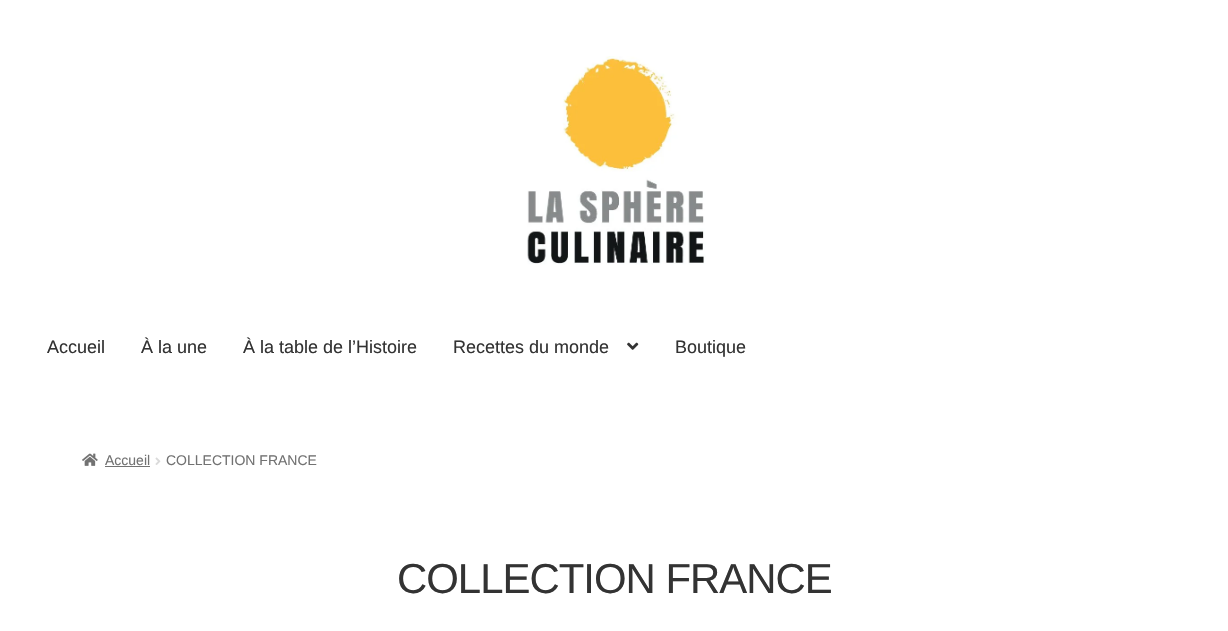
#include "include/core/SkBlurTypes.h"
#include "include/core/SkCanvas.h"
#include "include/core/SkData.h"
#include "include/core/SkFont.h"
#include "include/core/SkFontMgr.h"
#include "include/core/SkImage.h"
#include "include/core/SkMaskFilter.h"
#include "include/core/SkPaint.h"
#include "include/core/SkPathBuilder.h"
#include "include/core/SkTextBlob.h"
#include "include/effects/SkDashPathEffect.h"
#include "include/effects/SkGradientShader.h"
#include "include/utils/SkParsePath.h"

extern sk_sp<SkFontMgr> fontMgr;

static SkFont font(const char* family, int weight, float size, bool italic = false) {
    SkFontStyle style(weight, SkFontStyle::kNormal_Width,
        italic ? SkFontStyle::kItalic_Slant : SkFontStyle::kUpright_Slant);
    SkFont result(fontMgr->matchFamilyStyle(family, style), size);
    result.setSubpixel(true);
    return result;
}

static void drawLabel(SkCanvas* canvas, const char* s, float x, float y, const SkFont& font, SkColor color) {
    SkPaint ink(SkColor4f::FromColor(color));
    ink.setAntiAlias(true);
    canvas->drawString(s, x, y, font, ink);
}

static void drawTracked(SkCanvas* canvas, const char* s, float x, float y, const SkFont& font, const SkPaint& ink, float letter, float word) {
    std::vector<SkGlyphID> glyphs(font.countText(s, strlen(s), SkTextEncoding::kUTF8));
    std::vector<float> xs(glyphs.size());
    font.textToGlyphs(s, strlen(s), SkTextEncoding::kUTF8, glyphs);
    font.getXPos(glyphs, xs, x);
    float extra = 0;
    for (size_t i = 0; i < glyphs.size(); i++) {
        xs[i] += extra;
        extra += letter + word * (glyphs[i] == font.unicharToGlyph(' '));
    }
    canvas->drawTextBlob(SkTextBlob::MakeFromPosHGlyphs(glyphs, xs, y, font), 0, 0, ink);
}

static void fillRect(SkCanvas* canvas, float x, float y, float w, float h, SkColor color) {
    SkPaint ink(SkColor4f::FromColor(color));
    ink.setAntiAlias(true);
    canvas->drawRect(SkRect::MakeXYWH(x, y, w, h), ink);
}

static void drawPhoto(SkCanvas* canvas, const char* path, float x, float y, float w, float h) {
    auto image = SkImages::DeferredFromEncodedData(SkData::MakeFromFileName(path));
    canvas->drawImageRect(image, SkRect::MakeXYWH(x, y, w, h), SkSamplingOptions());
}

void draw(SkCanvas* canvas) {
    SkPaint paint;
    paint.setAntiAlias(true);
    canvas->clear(0xFFFFFFFF);
    drawPhoto(canvas, "assets/img1.png", 527, 56, 179, 209);
    SkFont font1 = font("Liberation Sans", 400, 18);
    drawLabel(canvas, "Accueil", 47, 353, font1, 0xFF333333);
    drawLabel(canvas, "À la une", 141, 353, font1, 0xFF333333);
    drawLabel(canvas, "À la table de l’Histoire", 243, 353, font1, 0xFF333333);
    drawLabel(canvas, "Recettes du monde", 453, 353, font1, 0xFF333333);
    drawPhoto(canvas, "assets/img2.png", 627, 342, 12, 8);
    drawLabel(canvas, "Boutique", 675, 353, font1, 0xFF333333);
    drawPhoto(canvas, "assets/img3.png", 82, 453, 16, 13);
    SkFont font2 = font("Liberation Sans", 400, 14);
    drawLabel(canvas, "Accueil", 105, 465, font2, 0xFF727272);
    fillRect(canvas, 105, 466, 45, 1, 0xFF727272);
    drawPhoto(canvas, "assets/img4.png", 155, 457, 6, 8);
    drawLabel(canvas, "COLLECTION FRANCE", 166, 465, font2, 0xFF727272);
    SkFont font3 = font("Liberation Sans", 400, 41.9f);
    paint.setColor(0xFF333333);
    drawTracked(canvas, "COLLECTION FRANCE", 397, 593, font3, paint, -1, 0);
}
